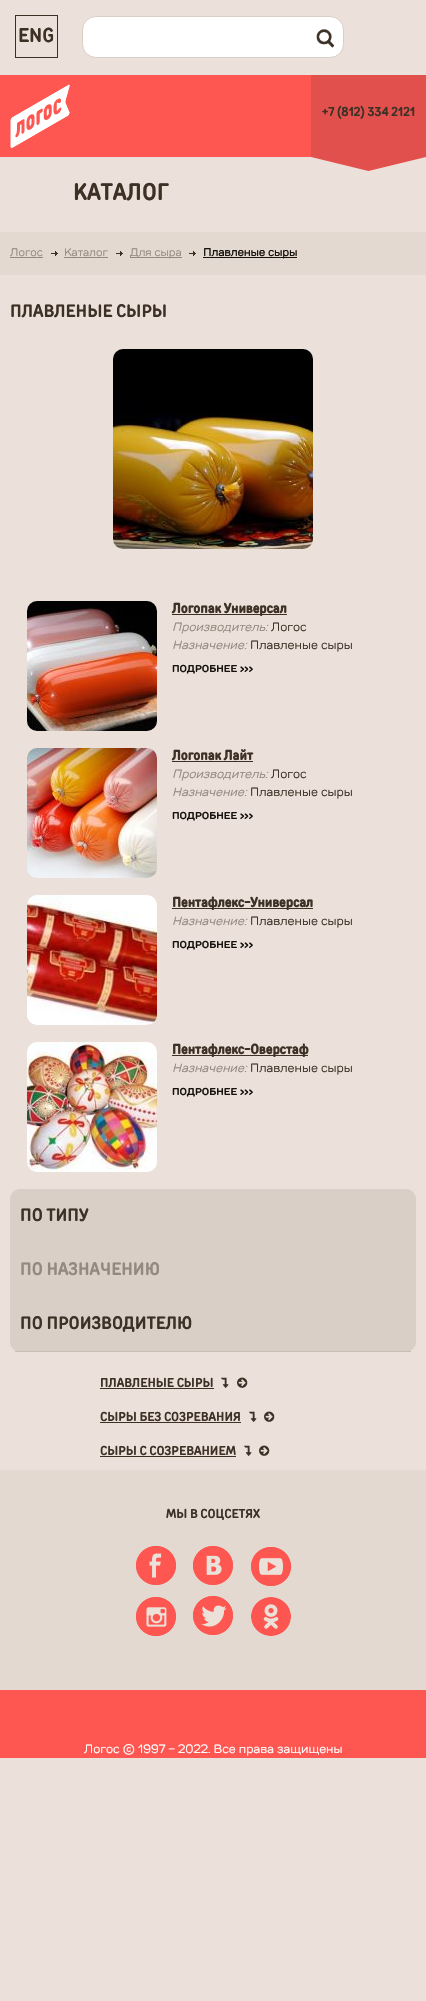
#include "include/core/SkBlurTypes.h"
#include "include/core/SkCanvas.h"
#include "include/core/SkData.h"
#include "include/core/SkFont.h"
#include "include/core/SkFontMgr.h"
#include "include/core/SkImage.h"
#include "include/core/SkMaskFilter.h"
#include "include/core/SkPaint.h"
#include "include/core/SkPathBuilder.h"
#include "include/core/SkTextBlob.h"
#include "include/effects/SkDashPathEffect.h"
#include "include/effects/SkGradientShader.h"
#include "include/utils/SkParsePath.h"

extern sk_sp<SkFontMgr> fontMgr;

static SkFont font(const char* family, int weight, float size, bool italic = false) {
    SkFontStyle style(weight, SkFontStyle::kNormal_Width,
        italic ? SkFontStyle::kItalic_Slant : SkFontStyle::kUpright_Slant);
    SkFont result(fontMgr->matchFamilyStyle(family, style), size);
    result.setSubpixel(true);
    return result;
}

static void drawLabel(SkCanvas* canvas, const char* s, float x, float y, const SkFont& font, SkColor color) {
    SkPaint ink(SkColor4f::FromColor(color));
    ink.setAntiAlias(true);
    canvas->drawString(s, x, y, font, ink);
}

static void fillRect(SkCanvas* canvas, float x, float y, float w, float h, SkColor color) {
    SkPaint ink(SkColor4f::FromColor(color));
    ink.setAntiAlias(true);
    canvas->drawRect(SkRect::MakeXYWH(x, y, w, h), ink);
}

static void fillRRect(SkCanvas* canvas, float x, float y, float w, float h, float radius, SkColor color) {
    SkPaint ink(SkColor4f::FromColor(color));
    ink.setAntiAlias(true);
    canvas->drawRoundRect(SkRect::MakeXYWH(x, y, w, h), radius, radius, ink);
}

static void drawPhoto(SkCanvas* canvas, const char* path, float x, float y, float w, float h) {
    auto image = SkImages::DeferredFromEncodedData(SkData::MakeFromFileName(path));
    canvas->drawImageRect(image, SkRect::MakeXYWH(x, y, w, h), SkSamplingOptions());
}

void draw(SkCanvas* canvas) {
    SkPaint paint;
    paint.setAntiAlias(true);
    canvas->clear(0xFFECE0DA);
    paint.setStroke(true);
    paint.setStrokeWidth(1);
    paint.setColor(0xFF3D3126);
    canvas->drawRect(SkRect::MakeXYWH(15.5f, 15.5f, 42, 42), paint);
    SkFont font1 = font("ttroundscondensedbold", 400, 20);
    drawLabel(canvas, "ENG", 18, 42, font1, 0xFF3D3126);
    paint.setStroke(false);
    paint.setColor(0xFFFFFFFF);
    canvas->drawRoundRect(SkRect::MakeXYWH(82.5f, 16.5f, 261, 41), 13.5f, 13.5f, paint);
    paint.setStroke(true);
    paint.setColor(0xFFD9CFC7);
    canvas->drawRoundRect(SkRect::MakeXYWH(82.5f, 16.5f, 261, 41), 13.5f, 13.5f, paint);
    drawPhoto(canvas, "assets/img1.png", 316, 29, 18, 19);
    fillRect(canvas, 0, 75, 311, 82, 0xFFFE5751);
    drawPhoto(canvas, "assets/img2.png", 10, 84, 60, 65);
    drawPhoto(canvas, "assets/img3.png", 311, 75, 115, 96);
    SkFont font2 = font("ttroundscondensedbold", 400, 13);
    drawLabel(canvas, "+7 (812) 334 2121", 322, 116, font2, 0xFF3D3126);
    SkFont font3 = font("ttroundscondensedbold", 400, 24);
    drawLabel(canvas, "КАТАЛОГ", 73, 200, font3, 0xFF3D3126);
    fillRect(canvas, 0, 232, 426, 43, 0xFFE3D9D1);
    SkFont font4 = font("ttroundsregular", 400, 11);
    drawLabel(canvas, "Логос", 10, 256, font4, 0xFF94897F);
    fillRect(canvas, 10, 257, 33, 1, 0xFF94897F);
    drawPhoto(canvas, "assets/img4.png", 51, 251, 7, 5);
    drawLabel(canvas, "Каталог", 64, 256, font4, 0xFF94897F);
    fillRect(canvas, 64, 257, 44, 1, 0xFF94897F);
    drawPhoto(canvas, "assets/img4.png", 116, 251, 7, 5);
    fillRect(canvas, 130, 257, 52, 1, 0xFF94897F);
    drawLabel(canvas, "Для сыра", 130, 256, font4, 0xFF94897F);
    drawPhoto(canvas, "assets/img4.png", 189, 251, 7, 5);
    fillRect(canvas, 203, 257, 94, 1, 0xFF17120E);
    SkFont font5 = font("ttroundsregular", 700, 11);
    drawLabel(canvas, "Плавленые сыры", 203, 256, font5, 0xFF17120E);
    SkFont font6 = font("ttroundscondensedbold", 400, 18);
    drawLabel(canvas, "ПЛАВЛЕНЫЕ СЫРЫ", 10, 317, font6, 0xFF3D3126);
    drawPhoto(canvas, "assets/img5.png", 113, 349, 200, 200);
    drawPhoto(canvas, "assets/img6.png", 27, 601, 130, 130);
    fillRect(canvas, 172, 614, 115, 1, 0xFF3D3126);
    SkFont font7 = font("ttroundscondensedbold", 700, 14);
    drawLabel(canvas, "Логопак Универсал", 172, 613, font7, 0xFF3D3126);
    SkFont font8 = font("ttroundsregular", 400, 12, true);
    drawLabel(canvas, "Производитель:", 172, 631, font8, 0xFF94897F);
    SkFont font9 = font("ttroundsregular", 400, 12);
    drawLabel(canvas, "Логос", 271, 631, font9, 0xFF3D3126);
    drawLabel(canvas, "Назначение:", 172, 649, font8, 0xFF94897F);
    drawLabel(canvas, "Плавленые сыры", 250, 649, font9, 0xFF3D3126);
    SkFont font10 = font("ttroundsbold", 400, 10);
    drawLabel(canvas, "ПОДРОБНЕЕ", 172, 672, font10, 0xFF17120E);
    SkFont font11 = font("ttroundsbold", 400, 11);
    drawLabel(canvas, "›››", 240, 672, font11, 0xFF17120E);
    drawPhoto(canvas, "assets/img7.png", 27, 748, 130, 130);
    drawLabel(canvas, "Логопак Лайт", 172, 760, font7, 0xFF3D3126);
    fillRect(canvas, 172, 761, 81, 1, 0xFF3D3126);
    drawLabel(canvas, "Производитель:", 172, 778, font8, 0xFF94897F);
    drawLabel(canvas, "Логос", 271, 778, font9, 0xFF3D3126);
    drawLabel(canvas, "Назначение:", 172, 796, font8, 0xFF94897F);
    drawLabel(canvas, "Плавленые сыры", 250, 796, font9, 0xFF3D3126);
    drawLabel(canvas, "ПОДРОБНЕЕ", 172, 819, font10, 0xFF17120E);
    drawLabel(canvas, "›››", 240, 819, font11, 0xFF17120E);
    drawPhoto(canvas, "assets/img8.png", 27, 895, 130, 130);
    fillRect(canvas, 172, 908, 141, 1, 0xFF3D3126);
    drawLabel(canvas, "Пентафлекс-Универсал", 172, 907, font7, 0xFF3D3126);
    drawLabel(canvas, "Назначение:", 172, 925, font8, 0xFF94897F);
    drawLabel(canvas, "Плавленые сыры", 250, 925, font9, 0xFF3D3126);
    drawLabel(canvas, "ПОДРОБНЕЕ", 172, 948, font10, 0xFF17120E);
    drawLabel(canvas, "›››", 240, 948, font11, 0xFF17120E);
    drawPhoto(canvas, "assets/img9.png", 27, 1042, 130, 130);
    fillRect(canvas, 172, 1055, 136, 1, 0xFF3D3126);
    drawLabel(canvas, "Пентафлекс-Оверстаф", 172, 1054, font7, 0xFF3D3126);
    drawLabel(canvas, "Назначение:", 172, 1072, font8, 0xFF94897F);
    drawLabel(canvas, "Плавленые сыры", 250, 1072, font9, 0xFF3D3126);
    drawLabel(canvas, "ПОДРОБНЕЕ", 172, 1095, font10, 0xFF17120E);
    drawLabel(canvas, "›››", 240, 1095, font11, 0xFF17120E);
    fillRRect(canvas, 10, 1189, 406, 163, 10, 0xFFD9CFC7);
    fillRect(canvas, 15, 1351, 396, 1, 0xFFC8BEB5);
    drawLabel(canvas, "ПО ТИПУ", 20, 1221, font6, 0xFF3D3126);
    drawLabel(canvas, "ПО НАЗНАЧЕНИЮ", 20, 1275, font6, 0xFF94897F);
    drawLabel(canvas, "ПО ПРОИЗВОДИТЕЛЮ", 20, 1329, font6, 0xFF3D3126);
    drawLabel(canvas, "ПЛАВЛЕНЫЕ СЫРЫ", 100, 1387, font2, 0xFF3D3126);
    fillRect(canvas, 100, 1388, 114, 1, 0xFF3D3126);
    drawPhoto(canvas, "assets/img10.png", 221, 1377, 8, 11);
    drawPhoto(canvas, "assets/img11.png", 237, 1377, 11, 11);
    drawLabel(canvas, "СЫРЫ БЕЗ СОЗРЕВАНИЯ", 100, 1421, font2, 0xFF3D3126);
    fillRect(canvas, 100, 1422, 141, 1, 0xFF3D3126);
    drawPhoto(canvas, "assets/img10.png", 249, 1411, 8, 11);
    drawPhoto(canvas, "assets/img11.png", 264, 1411, 11, 11);
    drawLabel(canvas, "СЫРЫ С СОЗРЕВАНИЕМ", 100, 1455, font2, 0xFF3D3126);
    fillRect(canvas, 100, 1456, 136, 1, 0xFF3D3126);
    drawPhoto(canvas, "assets/img10.png", 244, 1445, 8, 11);
    drawPhoto(canvas, "assets/img11.png", 259, 1445, 11, 11);
    fillRect(canvas, 0, 1690, 426, 68, 0xFFFE5751);
    fillRect(canvas, 0, 1470, 426, 220, 0xFFE3D9D1);
    drawLabel(canvas, "МЫ В СОЦСЕТЯХ", 166, 1518, font2, 0xFF3D3126);
    drawPhoto(canvas, "assets/img12.png", 136, 1546, 40, 39);
    drawPhoto(canvas, "assets/img13.png", 193, 1546, 40, 39);
    drawPhoto(canvas, "assets/img14.png", 251, 1547, 40, 39);
    drawPhoto(canvas, "assets/img15.png", 136, 1597, 40, 39);
    drawPhoto(canvas, "assets/img16.png", 193, 1596, 40, 39);
    drawPhoto(canvas, "assets/img17.png", 251, 1597, 40, 39);
    drawLabel(canvas, "Логос © 1997 - 2022. Все права защищены", 84, 1753, font9, 0xFFFFFFFF);
}
